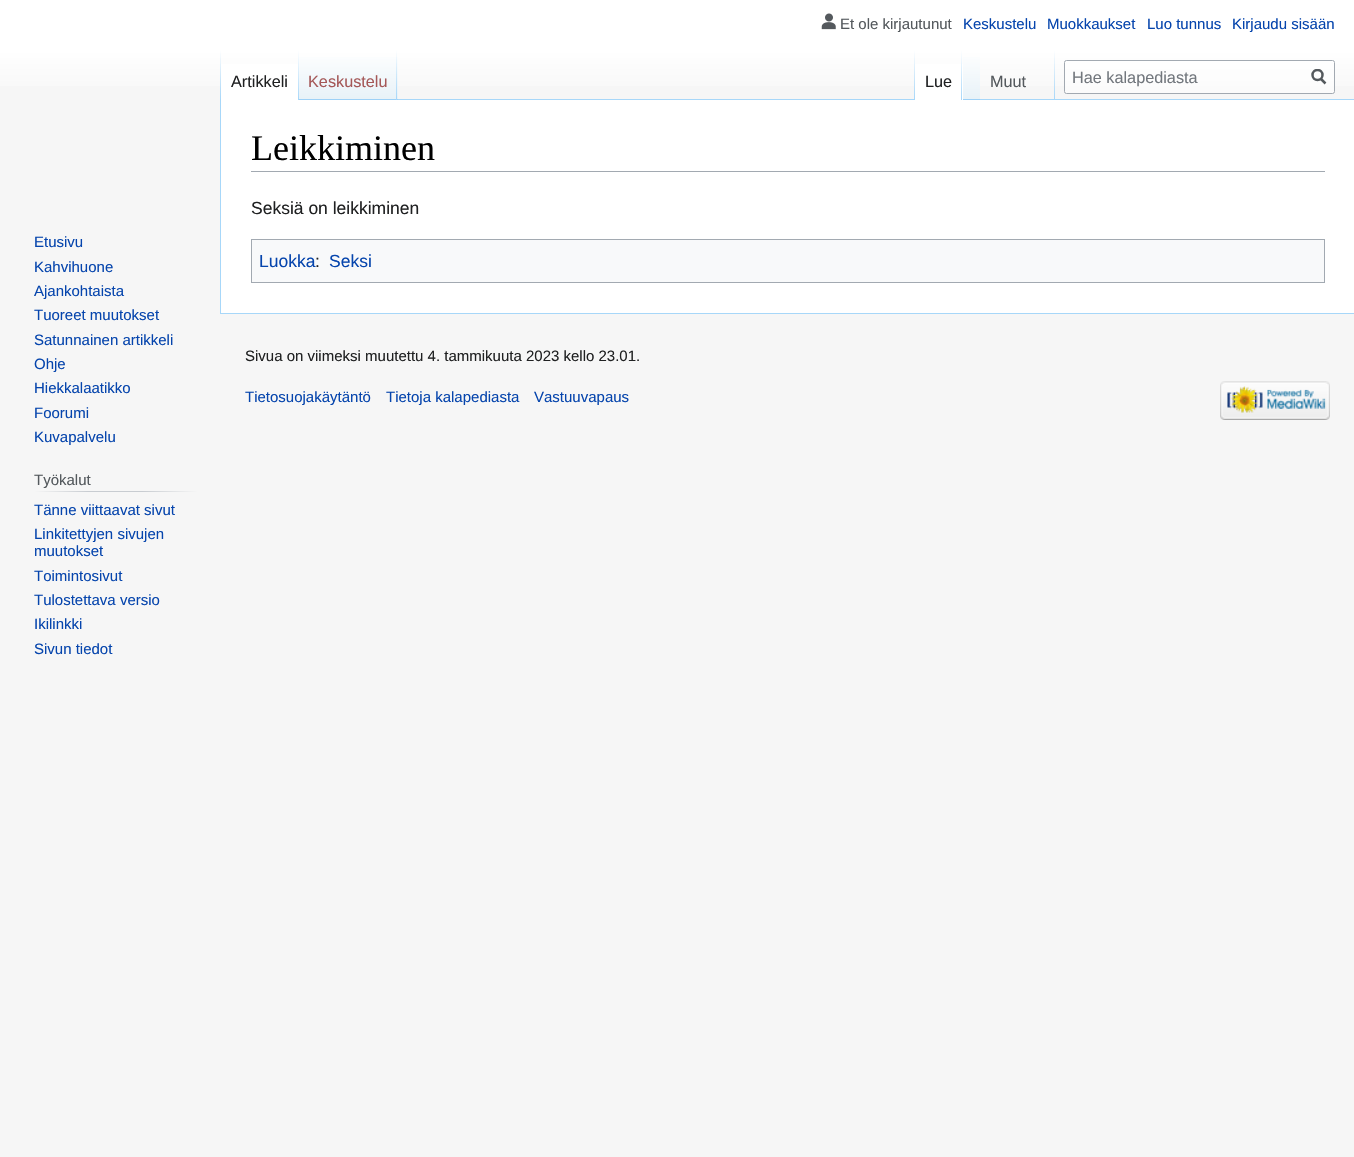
#include "include/core/SkBlurTypes.h"
#include "include/core/SkCanvas.h"
#include "include/core/SkData.h"
#include "include/core/SkFont.h"
#include "include/core/SkFontMgr.h"
#include "include/core/SkImage.h"
#include "include/core/SkMaskFilter.h"
#include "include/core/SkPaint.h"
#include "include/core/SkPathBuilder.h"
#include "include/core/SkTextBlob.h"
#include "include/effects/SkDashPathEffect.h"
#include "include/effects/SkGradientShader.h"
#include "include/utils/SkParsePath.h"

extern sk_sp<SkFontMgr> fontMgr;

static SkFont font(const char* family, int weight, float size, bool italic = false) {
    SkFontStyle style(weight, SkFontStyle::kNormal_Width,
        italic ? SkFontStyle::kItalic_Slant : SkFontStyle::kUpright_Slant);
    SkFont result(fontMgr->matchFamilyStyle(family, style), size);
    result.setSubpixel(true);
    return result;
}

static void drawLabel(SkCanvas* canvas, const char* s, float x, float y, const SkFont& font, SkColor color) {
    SkPaint ink(SkColor4f::FromColor(color));
    ink.setAntiAlias(true);
    canvas->drawString(s, x, y, font, ink);
}

static void fillRect(SkCanvas* canvas, float x, float y, float w, float h, SkColor color) {
    SkPaint ink(SkColor4f::FromColor(color));
    ink.setAntiAlias(true);
    canvas->drawRect(SkRect::MakeXYWH(x, y, w, h), ink);
}

static void drawPhoto(SkCanvas* canvas, const char* path, float x, float y, float w, float h) {
    auto image = SkImages::DeferredFromEncodedData(SkData::MakeFromFileName(path));
    canvas->drawImageRect(image, SkRect::MakeXYWH(x, y, w, h), SkSamplingOptions());
}

static SkPath parsePath(const char* data, bool evenOdd = false) {
    SkPath result = *SkParsePath::FromSVGString(data);
    if (evenOdd) result.setFillType(SkPathFillType::kEvenOdd);
    return result;
}

void draw(SkCanvas* canvas) {
    SkPaint paint;
    paint.setAntiAlias(true);
    canvas->clear(0xFFF6F6F6);
    {
        const SkColor colors[] = {0xFFFFFFFF, 0xFFF6F6F6};
        const float stops[] = {0.5f, 1};
        const SkPoint ends[] = {{678, 0}, {678, 100}};
        paint.setShader(SkGradientShader::MakeLinear(ends, colors, stops, 2, SkTileMode::kClamp));
        paint.setAlpha(255);
    }
    canvas->drawRect(SkRect::MakeXYWH(0, 0, 1354, 86), paint);
    drawPhoto(canvas, "assets/img1.png", 821, 13, 15, 17);
    SkFont font1 = font("Liberation Sans", 400, 15);
    drawLabel(canvas, "Et ole kirjautunut", 840, 29, font1, 0xFF54595D);
    drawLabel(canvas, "Keskustelu", 963, 29, font1, 0xFF0645AD);
    drawLabel(canvas, "Muokkaukset", 1047, 29, font1, 0xFF0645AD);
    drawLabel(canvas, "Luo tunnus", 1147, 29, font1, 0xFF0645AD);
    drawLabel(canvas, "Kirjaudu sisään", 1232, 29, font1, 0xFF0645AD);
    fillRect(canvas, 220, 313, 1134, 1, 0xFFA7D7F9);
    fillRect(canvas, 220, 99, 1, 215, 0xFFA7D7F9);
    {
        const SkColor colors[] = {0x00A7D7F9, 0xFFA7D7F9};
        const float stops[] = {0, 1};
        const SkPoint ends[] = {{221, 50}, {221, 100}};
        paint.setShader(SkGradientShader::MakeLinear(ends, colors, stops, 2, SkTileMode::kClamp));
        paint.setAlpha(255);
    }
    canvas->drawRect(SkRect::MakeXYWH(220, 50, 1, 50), paint);
    fillRect(canvas, 221, 64, 77, 36, 0xFFFFFFFF);
    {
        const SkColor colors[] = {0xFFFFFFFF, 0xFFA7D7F9};
        const float stops[] = {0, 1};
        const SkPoint ends[] = {{298, 50}, {298, 100}};
        paint.setShader(SkGradientShader::MakeLinear(ends, colors, stops, 2, SkTileMode::kClamp));
        paint.setAlpha(255);
    }
    canvas->drawRect(SkRect::MakeXYWH(298, 50, 1, 50), paint);
    SkFont font2 = font("Liberation Sans", 400, 16.25f);
    drawLabel(canvas, "Artikkeli", 231, 87, font2, 0xFF202122);
    {
        const SkColor colors[] = {0xFF77C1F6, 0xFFE8F2F8, 0xFFFFFFFF};
        const float stops[] = {0, 0.03f, 1};
        const SkPoint ends[] = {{348, 100}, {348, 50}};
        paint.setShader(SkGradientShader::MakeLinear(ends, colors, stops, 3, SkTileMode::kClamp));
        paint.setAlpha(255);
    }
    canvas->drawRect(SkRect::MakeXYWH(299, 57, 99, 43), paint);
    {
        const SkColor colors[] = {0x00A7D7F9, 0xFFA7D7F9};
        const float stops[] = {0, 1};
        const SkPoint ends[] = {{397, 50}, {397, 100}};
        paint.setShader(SkGradientShader::MakeLinear(ends, colors, stops, 2, SkTileMode::kClamp));
        paint.setAlpha(255);
    }
    canvas->drawRect(SkRect::MakeXYWH(396, 50, 1, 50), paint);
    drawLabel(canvas, "Keskustelu", 308, 87, font2, 0xFFA55858);
    fillRect(canvas, 398, 99, 956, 1, 0xFFA7D7F9);
    {
        const SkColor colors[] = {0x00A7D7F9, 0xFFA7D7F9};
        const float stops[] = {0, 1};
        const SkPoint ends[] = {{914, 50}, {914, 100}};
        paint.setShader(SkGradientShader::MakeLinear(ends, colors, stops, 2, SkTileMode::kClamp));
        paint.setAlpha(255);
    }
    canvas->drawRect(SkRect::MakeXYWH(914, 50, 1, 50), paint);
    fillRect(canvas, 915, 64, 48, 36, 0xFFFFFFFF);
    {
        const SkColor colors[] = {0xFFFFFFFF, 0xFFA7D7F9};
        const float stops[] = {0, 1};
        const SkPoint ends[] = {{962, 50}, {962, 100}};
        paint.setShader(SkGradientShader::MakeLinear(ends, colors, stops, 2, SkTileMode::kClamp));
        paint.setAlpha(255);
    }
    canvas->drawRect(SkRect::MakeXYWH(961, 50, 1, 50), paint);
    drawLabel(canvas, "Lue", 925, 87, font2, 0xFF202122);
    {
        const SkColor colors[] = {0xFF77C1F6, 0xFFE8F2F8, 0xFFFFFFFF};
        const float stops[] = {0, 0.03f, 1};
        const SkPoint ends[] = {{971, 100}, {971, 50}};
        paint.setShader(SkGradientShader::MakeLinear(ends, colors, stops, 3, SkTileMode::kClamp));
        paint.setAlpha(255);
    }
    canvas->drawRect(SkRect::MakeXYWH(963, 57, 17, 43), paint);
    {
        const SkColor colors[] = {0x00A7D7F9, 0xFFA7D7F9};
        const float stops[] = {0, 1};
        const SkPoint ends[] = {{1054, 50}, {1054, 100}};
        paint.setShader(SkGradientShader::MakeLinear(ends, colors, stops, 2, SkTileMode::kClamp));
        paint.setAlpha(255);
    }
    canvas->drawRect(SkRect::MakeXYWH(1054, 50, 1, 50), paint);
    drawLabel(canvas, "Muut", 990, 87, font2, 0xFF54595D);
    paint.setShader(nullptr);
    paint.setColor(0x80FFFFFF);
    canvas->drawRoundRect(SkRect::MakeXYWH(1064.5f, 60.5f, 270, 33), 2, 2, paint);
    paint.setStroke(true);
    paint.setStrokeWidth(1);
    paint.setColor(0xFFA2A9B1);
    canvas->drawRoundRect(SkRect::MakeXYWH(1064.5f, 60.5f, 270, 33), 2, 2, paint);
    drawLabel(canvas, "Hae kalapediasta", 1072, 83, font2, 0xFF72777D);
    paint.setStrokeWidth(2.5f);
    paint.setColor(0xFF54595D);
    canvas->drawPath(parsePath("M1325.5 83.5L1320.5 78.5"), paint);
    canvas->save();
    canvas->clipRect(SkRect::MakeXYWH(1311, 69, 15, 16));
    canvas->drawCircle(1317.5f, 75, 5, paint);
    canvas->restore();
    drawLabel(canvas, "Etusivu", 34, 247, font1, 0xFF0645AD);
    drawLabel(canvas, "Kahvihuone", 34, 272, font1, 0xFF0645AD);
    drawLabel(canvas, "Ajankohtaista", 34, 296, font1, 0xFF0645AD);
    drawLabel(canvas, "Tuoreet muutokset", 34, 320, font1, 0xFF0645AD);
    drawLabel(canvas, "Satunnainen artikkeli", 34, 345, font1, 0xFF0645AD);
    drawLabel(canvas, "Ohje", 34, 369, font1, 0xFF0645AD);
    drawLabel(canvas, "Hiekkalaatikko", 34, 393, font1, 0xFF0645AD);
    drawLabel(canvas, "Foorumi", 34, 418, font1, 0xFF0645AD);
    drawLabel(canvas, "Kuvapalvelu", 34, 442, font1, 0xFF0645AD);
    paint.setStroke(false);
    {
        const SkColor colors[] = {0xFFF6F6F6, 0xFFC8CCD1, 0xFFC8CCD1, 0xFFF6F6F6};
        const float stops[] = {0, 0.33f, 0.66f, 1};
        const SkPoint ends[] = {{34, 492}, {198, 492}};
        paint.setShader(SkGradientShader::MakeLinear(ends, colors, stops, 4, SkTileMode::kClamp));
        paint.setAlpha(255);
    }
    canvas->drawRect(SkRect::MakeXYWH(34, 491, 164, 1), paint);
    drawLabel(canvas, "Työkalut", 34, 485, font1, 0xFF54595D);
    drawLabel(canvas, "Tänne viittaavat sivut", 34, 515, font1, 0xFF0645AD);
    drawLabel(canvas, "Linkitettyjen sivujen", 34, 539, font1, 0xFF0645AD);
    drawLabel(canvas, "muutokset", 34, 556, font1, 0xFF0645AD);
    drawLabel(canvas, "Toimintosivut", 34, 581, font1, 0xFF0645AD);
    drawLabel(canvas, "Tulostettava versio", 34, 605, font1, 0xFF0645AD);
    drawLabel(canvas, "Ikilinkki", 34, 629, font1, 0xFF0645AD);
    drawLabel(canvas, "Sivun tiedot", 34, 654, font1, 0xFF0645AD);
    fillRect(canvas, 221, 100, 1133, 213, 0xFFFFFFFF);
    fillRect(canvas, 251, 171, 1074, 1, 0xFFA2A9B1);
    SkFont font3 = font("Liberation Serif", 400, 36);
    drawLabel(canvas, "Leikkiminen", 251, 160, font3, 0xFF000000);
    SkFont font4 = font("Liberation Sans", 400, 17.5f);
    drawLabel(canvas, "Seksiä on leikkiminen", 251, 214, font4, 0xFF202122);
    paint.setShader(nullptr);
    paint.setColor(0xFFF8F9FA);
    canvas->drawRect(SkRect::MakeXYWH(251.5f, 239.5f, 1073, 43), paint);
    paint.setStroke(true);
    paint.setStrokeWidth(1);
    paint.setColor(0xFFA2A9B1);
    canvas->drawRect(SkRect::MakeXYWH(251.5f, 239.5f, 1073, 43), paint);
    drawLabel(canvas, "Luokka", 259, 267, font4, 0xFF0645AD);
    drawLabel(canvas, ":", 315, 267, font4, 0xFF202122);
    drawLabel(canvas, "Seksi", 329, 267, font4, 0xFF0645AD);
    drawLabel(canvas, "Sivua on viimeksi muutettu 4. tammikuuta 2023 kello 23.01.", 245, 361, font1, 0xFF202122);
    drawLabel(canvas, "Tietosuojakäytäntö", 245, 402, font1, 0xFF0645AD);
    drawLabel(canvas, "Tietoja kalapediasta", 386, 402, font1, 0xFF0645AD);
    drawLabel(canvas, "Vastuuvapaus", 534, 402, font1, 0xFF0645AD);
    drawPhoto(canvas, "assets/img2.png", 1220, 381, 110, 39);
}
